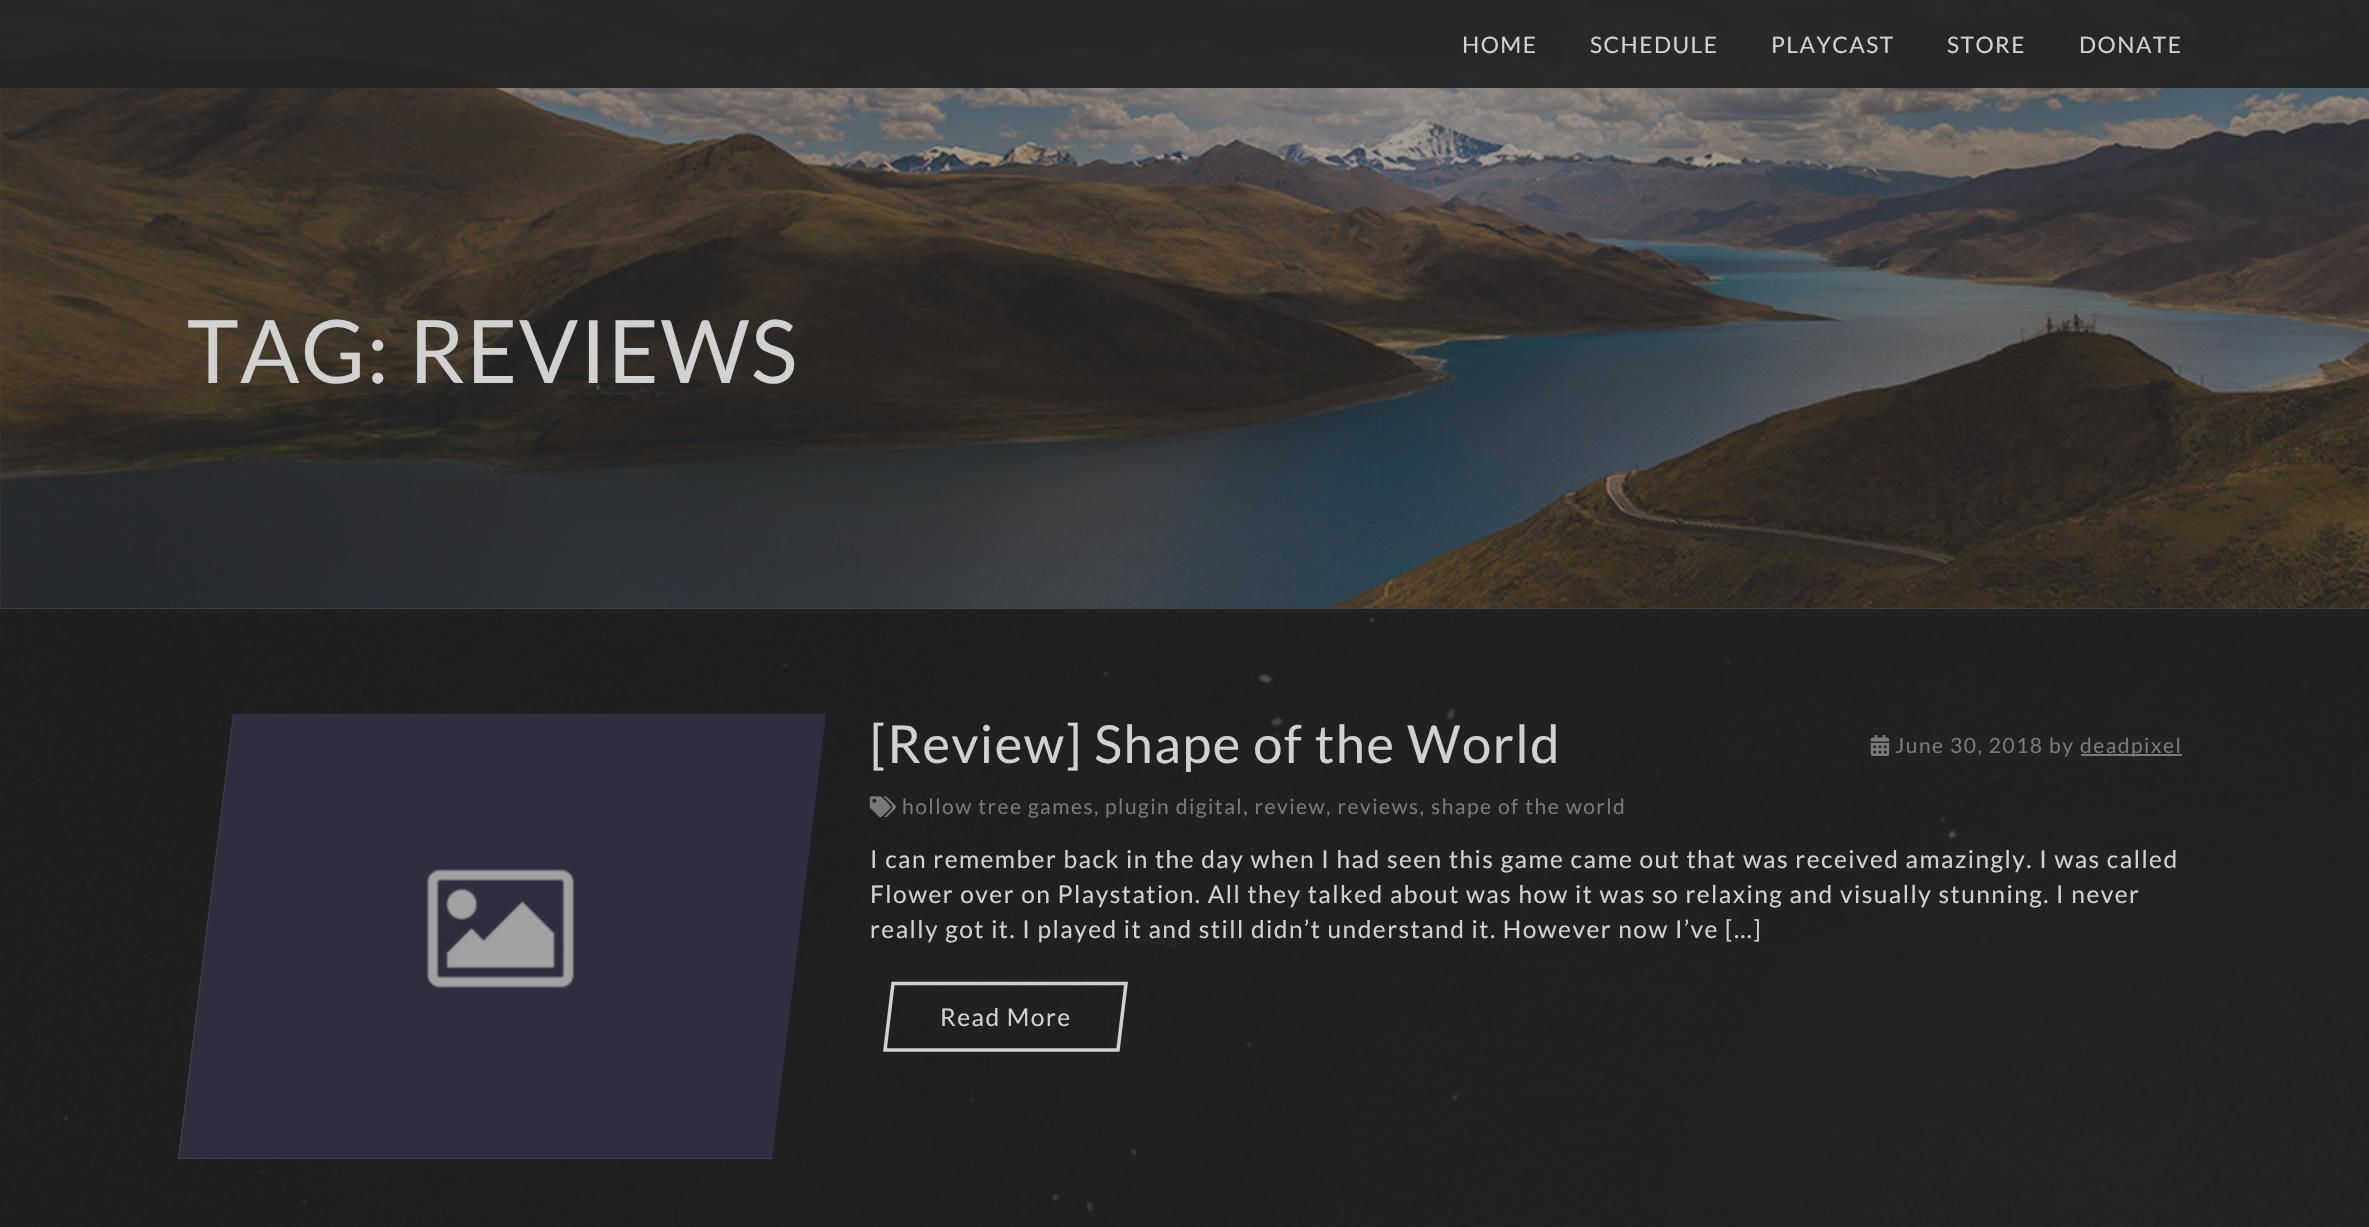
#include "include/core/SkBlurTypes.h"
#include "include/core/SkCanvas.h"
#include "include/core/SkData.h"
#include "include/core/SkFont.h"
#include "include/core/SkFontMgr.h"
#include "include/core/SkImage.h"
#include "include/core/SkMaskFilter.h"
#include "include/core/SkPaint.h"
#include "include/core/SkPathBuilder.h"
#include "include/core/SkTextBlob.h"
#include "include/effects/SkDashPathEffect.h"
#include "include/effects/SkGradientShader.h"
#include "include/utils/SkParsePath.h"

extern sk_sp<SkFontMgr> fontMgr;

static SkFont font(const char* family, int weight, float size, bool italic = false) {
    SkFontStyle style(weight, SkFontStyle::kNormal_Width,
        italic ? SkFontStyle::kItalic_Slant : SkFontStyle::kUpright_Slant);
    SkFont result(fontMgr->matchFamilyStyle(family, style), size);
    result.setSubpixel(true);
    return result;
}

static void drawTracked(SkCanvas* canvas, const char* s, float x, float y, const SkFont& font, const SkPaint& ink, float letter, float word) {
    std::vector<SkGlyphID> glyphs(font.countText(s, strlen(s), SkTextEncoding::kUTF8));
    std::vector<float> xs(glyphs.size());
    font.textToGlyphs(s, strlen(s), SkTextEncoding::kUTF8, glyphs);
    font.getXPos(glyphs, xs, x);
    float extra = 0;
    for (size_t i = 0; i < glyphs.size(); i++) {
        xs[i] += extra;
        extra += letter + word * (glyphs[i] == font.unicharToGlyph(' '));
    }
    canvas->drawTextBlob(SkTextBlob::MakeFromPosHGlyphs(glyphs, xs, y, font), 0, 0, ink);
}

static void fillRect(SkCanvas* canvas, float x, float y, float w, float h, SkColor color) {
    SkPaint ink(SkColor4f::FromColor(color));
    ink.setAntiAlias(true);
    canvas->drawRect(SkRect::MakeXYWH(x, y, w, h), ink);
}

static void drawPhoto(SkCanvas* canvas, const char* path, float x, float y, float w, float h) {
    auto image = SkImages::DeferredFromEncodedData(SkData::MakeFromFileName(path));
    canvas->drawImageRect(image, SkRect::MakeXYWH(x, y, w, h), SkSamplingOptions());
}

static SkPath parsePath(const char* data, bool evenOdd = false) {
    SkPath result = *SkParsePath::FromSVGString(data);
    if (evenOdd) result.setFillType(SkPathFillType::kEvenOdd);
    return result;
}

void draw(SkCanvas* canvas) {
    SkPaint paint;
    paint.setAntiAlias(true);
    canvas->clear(0xFFFFFFFF);
    drawPhoto(canvas, "assets/img1.png", 0, 609, 2369, 618);
    fillRect(canvas, 0, 0, 2369, 609, 0xFF444444);
    drawPhoto(canvas, "assets/img2.png", 0, 0, 2369, 609);
    fillRect(canvas, 0, 0, 2369, 88, 0xF0232323);
    SkFont font1 = font("Lato", 400, 22.75f);
    paint.setColor(0xFFD1D1D1);
    drawTracked(canvas, "HOME", 1462, 53, font1, paint, 1.47f, 0);
    drawTracked(canvas, "SCHEDULE", 1590, 53, font1, paint, 1.47f, 0);
    drawTracked(canvas, "PLAYCAST", 1771, 53, font1, paint, 1.47f, 0);
    drawTracked(canvas, "STORE", 1947, 53, font1, paint, 1.47f, 0);
    drawTracked(canvas, "DONATE", 2079, 53, font1, paint, 1.47f, 0);
    SkFont font2 = font("Lato", 400, 87.5f);
    drawTracked(canvas, "TAG: REVIEWS", 187, 383, font2, paint, 1.47f, 0);
    paint.setColor(0xFF444444);
    canvas->drawPath(parsePath("M233 714H826L772 1159H178Z"), paint);
    drawPhoto(canvas, "assets/img3.png", 179, 713, 649, 446);
    SkFont font3 = font("Lato", 400, 52.5f);
    paint.setColor(0xFFD1D1D1);
    drawTracked(canvas, "[Review] Shape of the World", 870, 763, font3, paint, 1.47f, 0);
    drawPhoto(canvas, "assets/img4.png", 1870, 735, 20, 21);
    SkFont font4 = font("Lato", 400, 21);
    paint.setColor(0xFF797979);
    drawTracked(canvas, "June 30, 2018 by", 1895, 753, font4, paint, 1.47f, 0);
    fillRect(canvas, 2081, 754, 101, 2, 0xFF797979);
    drawTracked(canvas, "deadpixel", 2080, 753, font4, paint, 1.47f, 0);
    drawPhoto(canvas, "assets/img5.png", 869, 796, 27, 22);
    drawTracked(canvas, "hollow tree games,", 902, 814, font4, paint, 1.47f, 0);
    drawTracked(canvas, "plugin digital, review, reviews, shape of the world", 1105, 814, font4, paint, 1.47f, 0);
    SkFont font5 = font("Lato", 400, 24.5f);
    paint.setColor(0xFFD1D1D1);
    drawTracked(canvas, "I can remember back in the day when I had seen this game came out that was received amazingly. I was called", 870, 868, font5, paint, 1.47f, 0);
    drawTracked(canvas, "Flower over on Playstation. All they talked about was how it was so relaxing and visually stunning. I never", 870, 903, font5, paint, 1.47f, 0);
    drawTracked(canvas, "really got it. I played it and still didn’t understand it. However now I’ve […]", 870, 938, font5, paint, 1.47f, 0);
    paint.setStroke(true);
    paint.setStrokeWidth(3.5f);
    canvas->drawPath(parsePath("M893 983.5H1126L1118 1050H885Z"), paint);
    paint.setStroke(false);
    drawTracked(canvas, "Read More", 940, 1026, font5, paint, 1.47f, 0);
}
